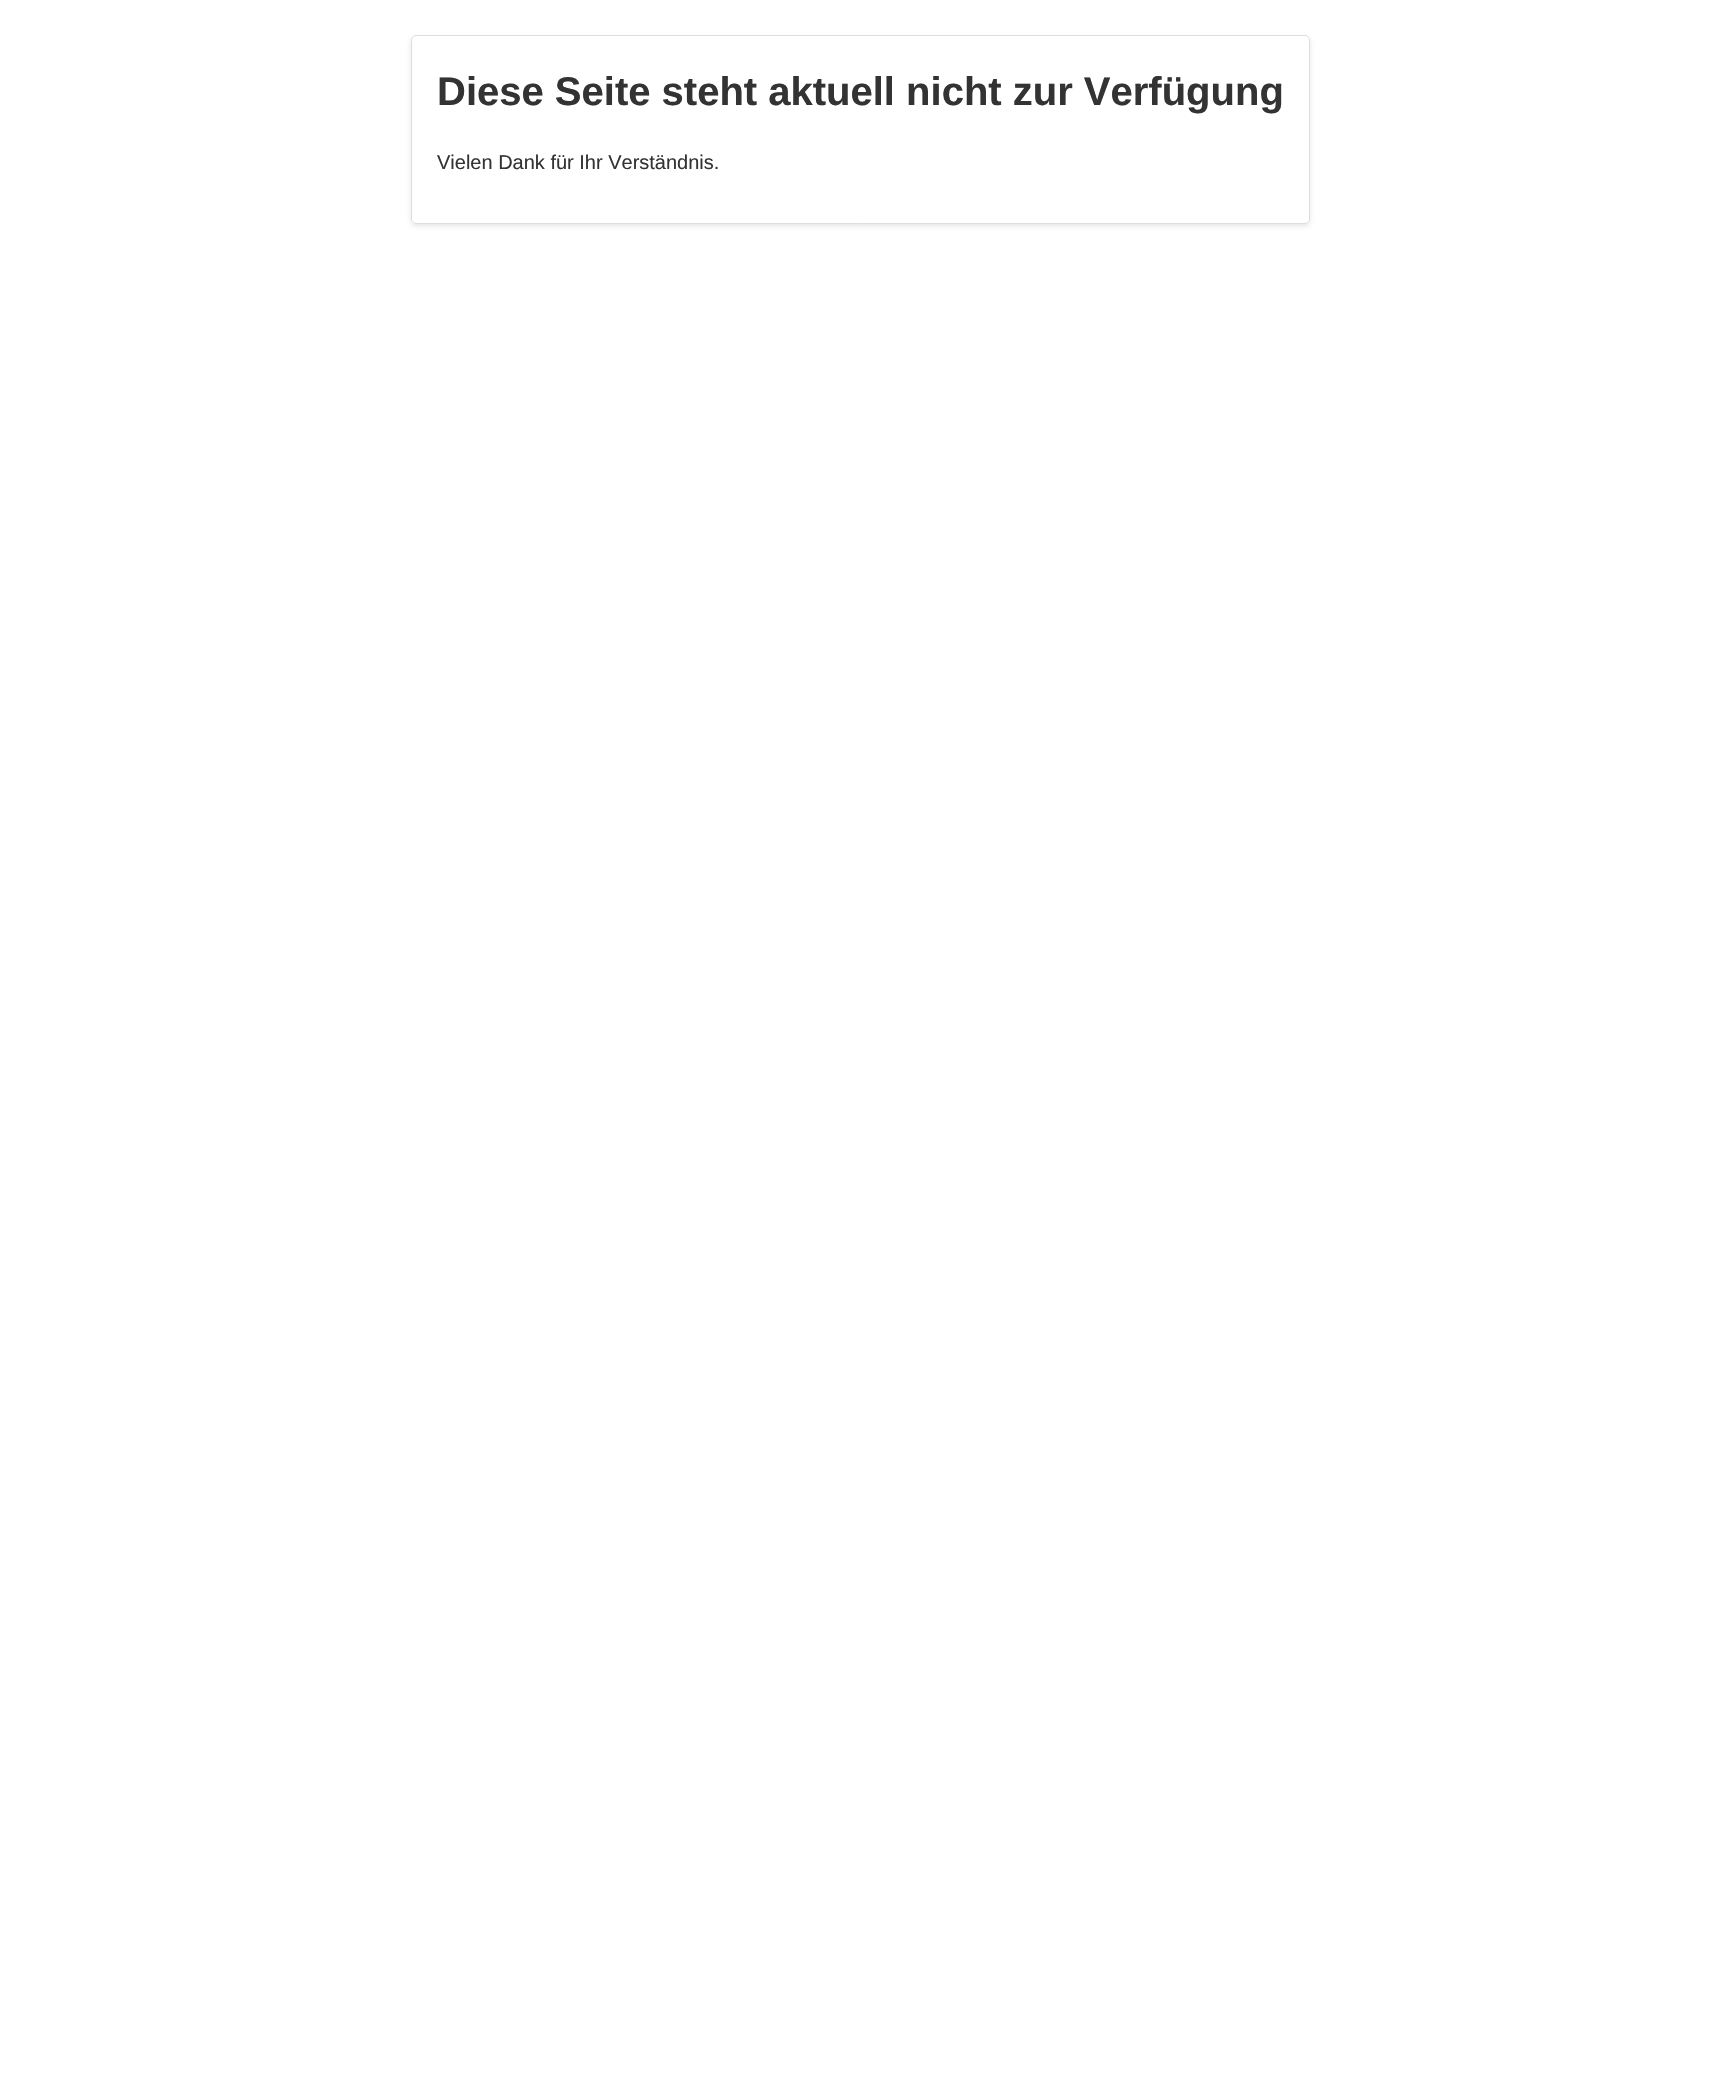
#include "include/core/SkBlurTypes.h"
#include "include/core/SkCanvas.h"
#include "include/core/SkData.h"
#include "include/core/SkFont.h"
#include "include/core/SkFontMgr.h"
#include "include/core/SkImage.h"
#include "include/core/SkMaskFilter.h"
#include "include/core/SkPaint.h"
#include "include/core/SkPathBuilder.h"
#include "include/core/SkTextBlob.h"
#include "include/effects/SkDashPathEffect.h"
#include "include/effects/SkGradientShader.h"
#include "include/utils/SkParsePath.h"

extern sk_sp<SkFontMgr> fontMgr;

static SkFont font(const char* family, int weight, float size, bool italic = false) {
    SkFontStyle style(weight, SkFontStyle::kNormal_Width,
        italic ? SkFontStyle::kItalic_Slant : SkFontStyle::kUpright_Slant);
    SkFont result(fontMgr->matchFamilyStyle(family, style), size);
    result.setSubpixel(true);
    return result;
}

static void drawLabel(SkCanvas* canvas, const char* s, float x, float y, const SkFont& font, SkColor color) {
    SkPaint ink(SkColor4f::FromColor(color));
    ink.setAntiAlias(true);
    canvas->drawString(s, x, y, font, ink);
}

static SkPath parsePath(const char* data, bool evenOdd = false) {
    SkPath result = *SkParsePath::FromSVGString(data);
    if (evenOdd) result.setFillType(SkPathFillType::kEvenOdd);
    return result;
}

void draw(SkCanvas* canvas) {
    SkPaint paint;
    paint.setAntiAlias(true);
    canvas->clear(0xFFFFFFFF);
    canvas->save();
    canvas->clipPath(parsePath("M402 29H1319V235H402ZM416 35H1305C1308 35 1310 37 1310 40V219C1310 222 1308 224 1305 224H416C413 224 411 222 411 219V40C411 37 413 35 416 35Z", true), true);
    paint.setColor(0x1A000000);
    paint.setMaskFilter(SkMaskFilter::MakeBlur(kNormal_SkBlurStyle, 2.5f));
    canvas->drawRoundRect(SkRect::MakeXYWH(411, 38, 899, 188), 5, 5, paint);
    paint.setMaskFilter(nullptr);
    canvas->restore();
    paint.setStroke(true);
    paint.setStrokeWidth(1);
    paint.setColor(0xFFDDDDDD);
    canvas->drawRoundRect(SkRect::MakeXYWH(411.5f, 35.5f, 898, 188), 4.5f, 4.5f, paint);
    SkFont font1 = font("Liberation Sans", 700, 40);
    drawLabel(canvas, "Diese Seite steht aktuell nicht zur Verfügung", 437, 105, font1, 0xFF333333);
    SkFont font2 = font("Liberation Sans", 400, 20);
    drawLabel(canvas, "Vielen Dank für Ihr Verständnis.", 437, 169, font2, 0xFF333333);
}
